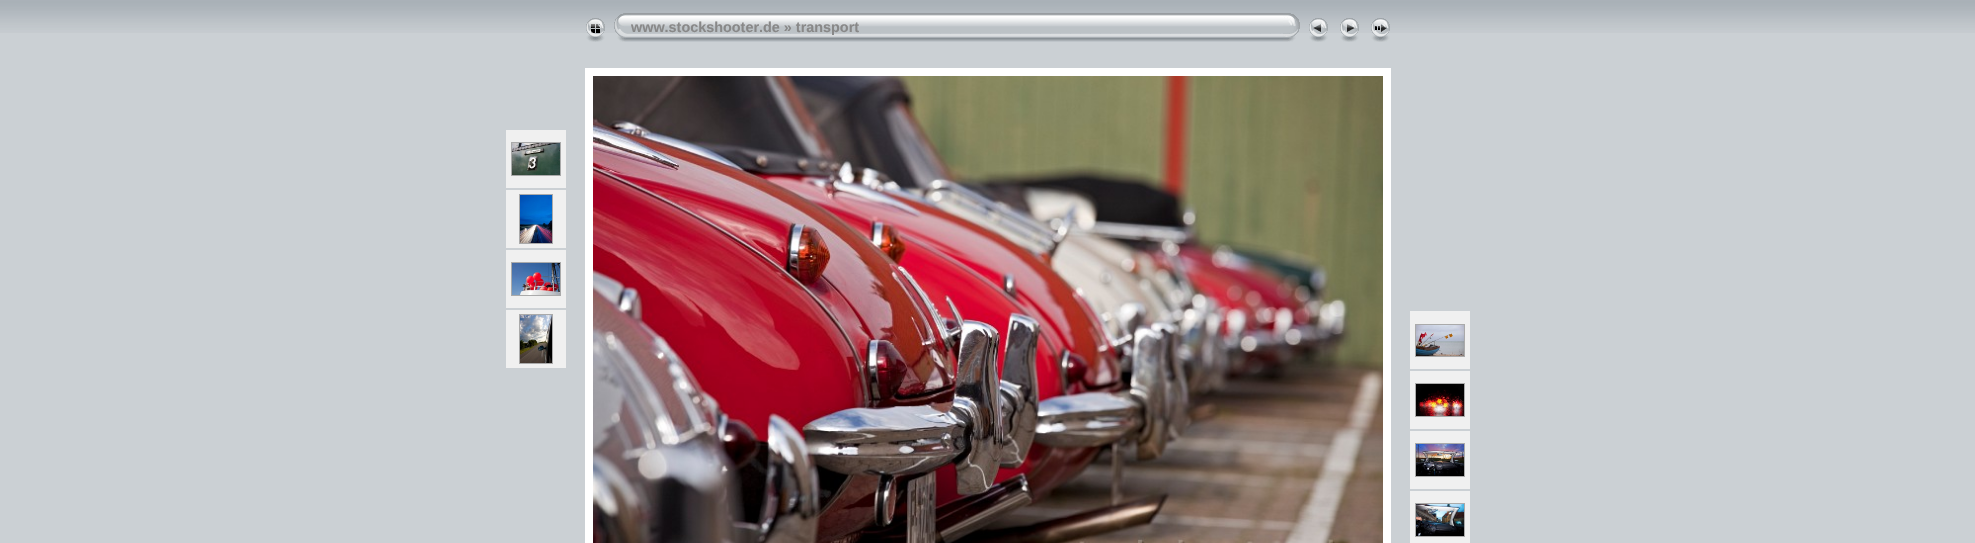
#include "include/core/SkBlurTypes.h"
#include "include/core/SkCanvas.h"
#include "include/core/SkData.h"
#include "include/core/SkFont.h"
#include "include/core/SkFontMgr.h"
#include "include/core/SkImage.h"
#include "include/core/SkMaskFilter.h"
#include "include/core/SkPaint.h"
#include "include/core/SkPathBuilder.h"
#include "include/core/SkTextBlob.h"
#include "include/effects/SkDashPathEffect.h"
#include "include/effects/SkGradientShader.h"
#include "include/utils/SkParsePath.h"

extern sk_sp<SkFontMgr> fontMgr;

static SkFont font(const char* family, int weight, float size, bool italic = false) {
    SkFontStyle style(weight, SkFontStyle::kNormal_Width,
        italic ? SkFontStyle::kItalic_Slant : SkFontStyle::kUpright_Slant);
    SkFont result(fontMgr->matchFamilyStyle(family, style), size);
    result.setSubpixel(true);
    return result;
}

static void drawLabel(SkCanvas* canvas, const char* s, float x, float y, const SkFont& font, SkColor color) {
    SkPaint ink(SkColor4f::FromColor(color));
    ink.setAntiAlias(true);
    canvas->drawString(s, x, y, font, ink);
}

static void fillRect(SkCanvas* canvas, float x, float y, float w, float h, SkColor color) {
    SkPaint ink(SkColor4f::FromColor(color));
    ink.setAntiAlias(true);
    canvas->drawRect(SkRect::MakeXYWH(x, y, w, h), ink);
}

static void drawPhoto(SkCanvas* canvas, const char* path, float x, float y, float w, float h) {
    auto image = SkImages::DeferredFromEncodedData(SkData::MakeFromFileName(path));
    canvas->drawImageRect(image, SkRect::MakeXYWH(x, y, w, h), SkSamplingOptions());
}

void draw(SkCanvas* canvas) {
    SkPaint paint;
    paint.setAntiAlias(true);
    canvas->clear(0xFFCBD0D4);
    drawPhoto(canvas, "assets/img1.png", 0, 0, 1975, 33);
    drawPhoto(canvas, "assets/img2.png", 586, 18, 19, 24);
    drawPhoto(canvas, "assets/img3.png", 614, 13, 17, 29);
    drawPhoto(canvas, "assets/img4.png", 631, 13, 652, 29);
    SkFont font1 = font("Liberation Sans", 700, 14.4f);
    drawLabel(canvas, "www.stockshooter.de » transport", 631, 32, font1, 0xFF888888);
    drawPhoto(canvas, "assets/img5.png", 1283, 13, 17, 29);
    drawPhoto(canvas, "assets/img6.png", 1309, 18, 19, 24);
    drawPhoto(canvas, "assets/img7.png", 1340, 18, 19, 24);
    drawPhoto(canvas, "assets/img8.png", 1371, 18, 19, 24);
    fillRect(canvas, 506, 130, 60, 58, 0xFFF0F0F0);
    paint.setStroke(true);
    paint.setStrokeWidth(1);
    paint.setColor(0xFFAAAAAA);
    canvas->drawRect(SkRect::MakeXYWH(511.5f, 142.5f, 49, 33), paint);
    drawPhoto(canvas, "assets/img9.png", 512, 143, 48, 32);
    fillRect(canvas, 506, 190, 60, 58, 0xFFF0F0F0);
    canvas->drawRect(SkRect::MakeXYWH(519.5f, 194.5f, 33, 49), paint);
    drawPhoto(canvas, "assets/img10.png", 520, 195, 32, 48);
    fillRect(canvas, 506, 250, 60, 58, 0xFFF0F0F0);
    canvas->drawRect(SkRect::MakeXYWH(511.5f, 262.5f, 49, 33), paint);
    drawPhoto(canvas, "assets/img11.png", 512, 263, 48, 32);
    fillRect(canvas, 506, 310, 60, 58, 0xFFF0F0F0);
    canvas->drawRect(SkRect::MakeXYWH(519.5f, 314.5f, 33, 49), paint);
    drawPhoto(canvas, "assets/img12.png", 520, 315, 32, 48);
    paint.setStrokeWidth(8);
    paint.setColor(0xFFFFFFFF);
    canvas->drawRect(SkRect::MakeXYWH(589, 72, 798, 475), paint);
    drawPhoto(canvas, "assets/img13.png", 593, 76, 790, 467);
    fillRect(canvas, 1410, 311, 60, 58, 0xFFF0F0F0);
    paint.setStrokeWidth(1);
    paint.setColor(0xFFAAAAAA);
    canvas->drawRect(SkRect::MakeXYWH(1415.5f, 324.5f, 49, 32), paint);
    drawPhoto(canvas, "assets/img14.png", 1416, 325, 48, 31);
    fillRect(canvas, 1410, 371, 60, 58, 0xFFF0F0F0);
    canvas->drawRect(SkRect::MakeXYWH(1415.5f, 383.5f, 49, 33), paint);
    drawPhoto(canvas, "assets/img15.png", 1416, 384, 48, 32);
    fillRect(canvas, 1410, 431, 60, 58, 0xFFF0F0F0);
    canvas->drawRect(SkRect::MakeXYWH(1415.5f, 443.5f, 49, 33), paint);
    drawPhoto(canvas, "assets/img16.png", 1416, 444, 48, 32);
    fillRect(canvas, 1410, 491, 60, 52, 0xFFF0F0F0);
    canvas->drawRect(SkRect::MakeXYWH(1415.5f, 503.5f, 49, 33), paint);
    drawPhoto(canvas, "assets/img17.png", 1416, 504, 48, 32);
}
